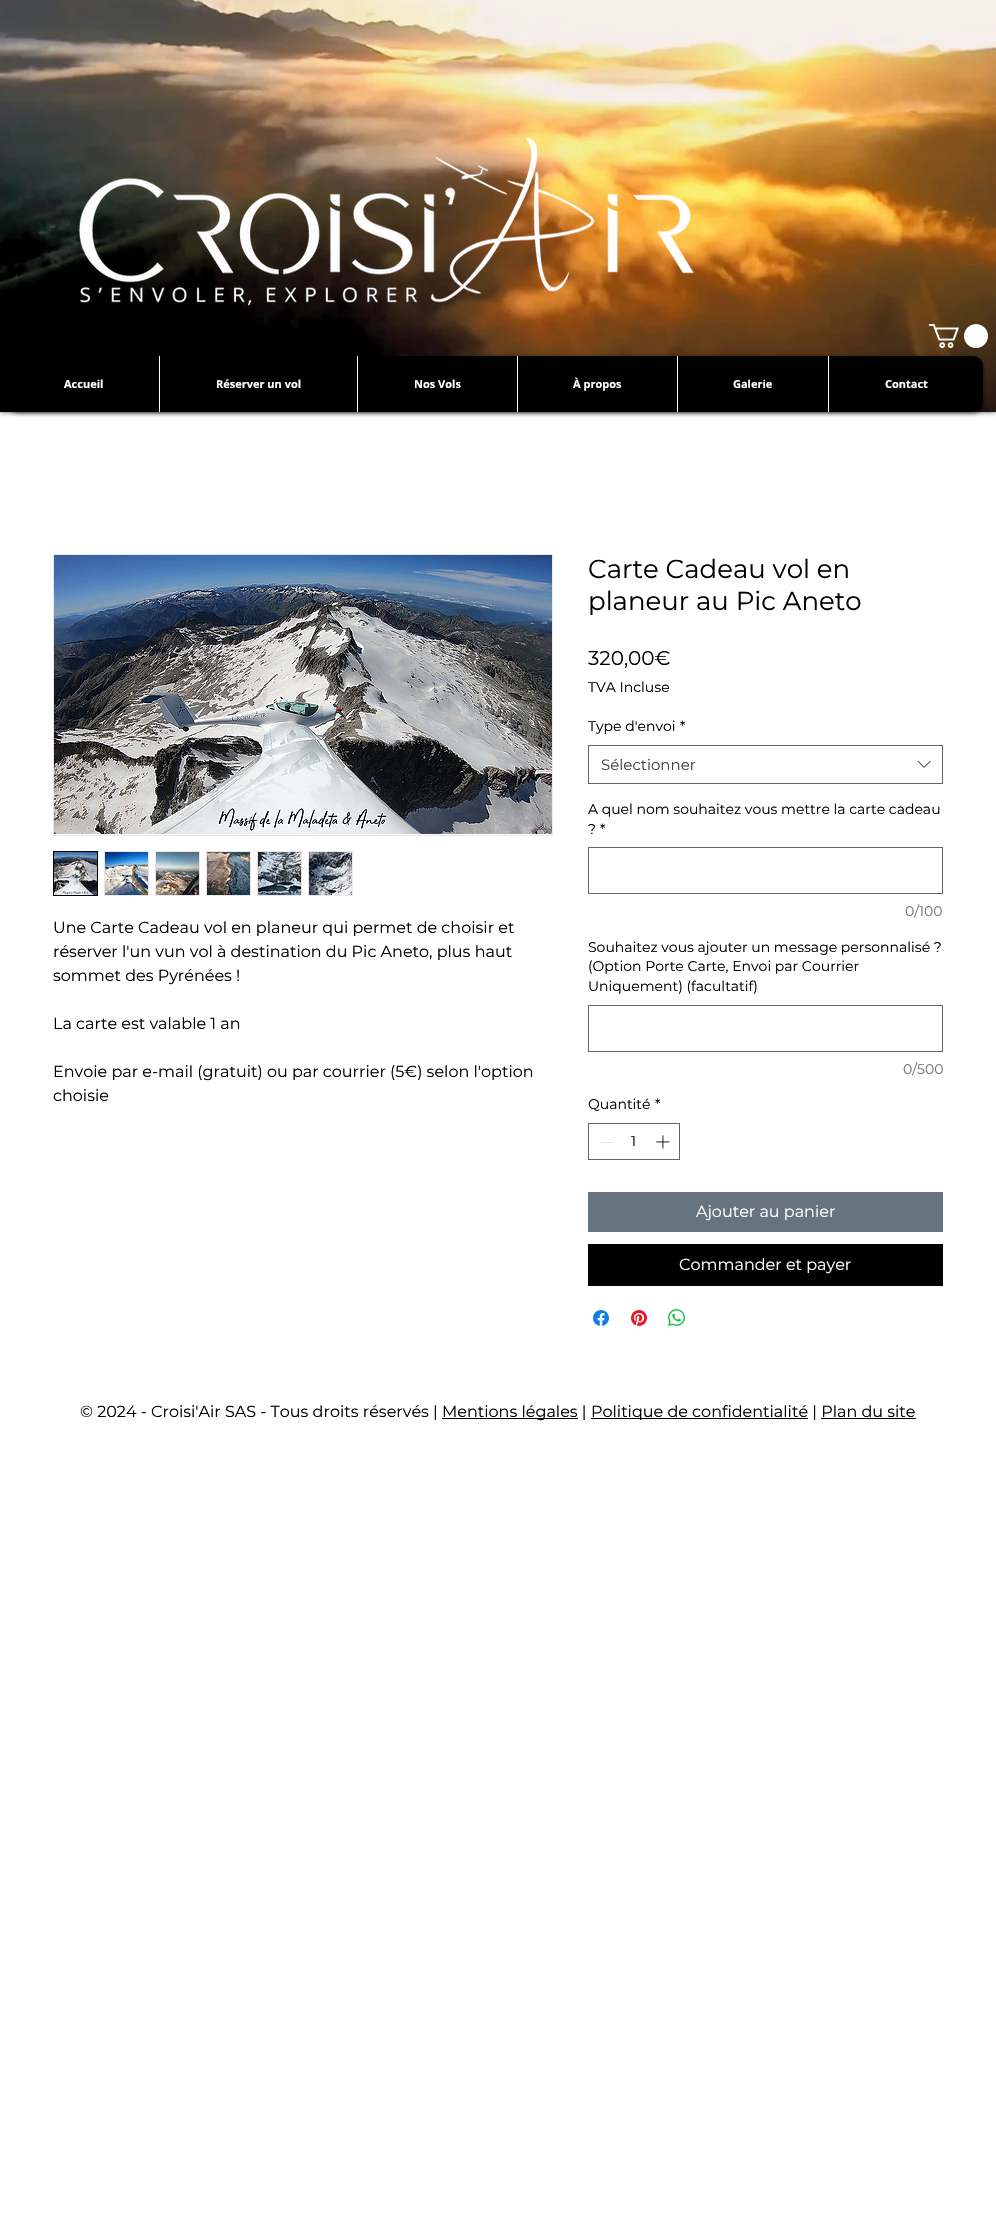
#include "include/core/SkBlurTypes.h"
#include "include/core/SkCanvas.h"
#include "include/core/SkData.h"
#include "include/core/SkFont.h"
#include "include/core/SkFontMgr.h"
#include "include/core/SkImage.h"
#include "include/core/SkMaskFilter.h"
#include "include/core/SkPaint.h"
#include "include/core/SkPathBuilder.h"
#include "include/core/SkTextBlob.h"
#include "include/effects/SkDashPathEffect.h"
#include "include/effects/SkGradientShader.h"
#include "include/utils/SkParsePath.h"

extern sk_sp<SkFontMgr> fontMgr;

static SkFont font(const char* family, int weight, float size, bool italic = false) {
    SkFontStyle style(weight, SkFontStyle::kNormal_Width,
        italic ? SkFontStyle::kItalic_Slant : SkFontStyle::kUpright_Slant);
    SkFont result(fontMgr->matchFamilyStyle(family, style), size);
    result.setSubpixel(true);
    return result;
}

static void drawLabel(SkCanvas* canvas, const char* s, float x, float y, const SkFont& font, SkColor color) {
    SkPaint ink(SkColor4f::FromColor(color));
    ink.setAntiAlias(true);
    canvas->drawString(s, x, y, font, ink);
}

static void fillRect(SkCanvas* canvas, float x, float y, float w, float h, SkColor color) {
    SkPaint ink(SkColor4f::FromColor(color));
    ink.setAntiAlias(true);
    canvas->drawRect(SkRect::MakeXYWH(x, y, w, h), ink);
}

static void fillRRect(SkCanvas* canvas, float x, float y, float w, float h, float radius, SkColor color) {
    SkPaint ink(SkColor4f::FromColor(color));
    ink.setAntiAlias(true);
    canvas->drawRoundRect(SkRect::MakeXYWH(x, y, w, h), radius, radius, ink);
}

static void drawPhoto(SkCanvas* canvas, const char* path, float x, float y, float w, float h) {
    auto image = SkImages::DeferredFromEncodedData(SkData::MakeFromFileName(path));
    canvas->drawImageRect(image, SkRect::MakeXYWH(x, y, w, h), SkSamplingOptions());
}

void draw(SkCanvas* canvas) {
    SkPaint paint;
    paint.setAntiAlias(true);
    canvas->clear(0xFFFFFFFF);
    paint.setColor(0xB3000000);
    paint.setMaskFilter(SkMaskFilter::MakeBlur(kNormal_SkBlurStyle, 2.5f));
    canvas->drawRect(SkRect::MakeXYWH(0, 0, 996, 412), paint);
    paint.setMaskFilter(nullptr);
    drawPhoto(canvas, "assets/img1.png", 0, 0, 996, 412);
    drawPhoto(canvas, "assets/img2.png", 78, 137, 616, 169);
    drawPhoto(canvas, "assets/img3.png", 929, 324, 59, 24);
    paint.setColor(0x99000000);
    paint.setMaskFilter(SkMaskFilter::MakeBlur(kNormal_SkBlurStyle, 2));
    canvas->drawRoundRect(SkRect::MakeXYWH(8, 357, 975, 56), 10, 10, paint);
    paint.setMaskFilter(nullptr);
    fillRRect(canvas, 8, 356, 975, 56, 10, 0xFF000000);
    SkFont font1 = font("Open Sans", 700, 11);
    drawLabel(canvas, "Accueil", 64, 388, font1, 0xFFFFFFFF);
    fillRect(canvas, 159, 356, 1, 56, 0xFFFFFFFF);
    drawLabel(canvas, "Réserver un vol", 216, 388, font1, 0xFFFFFFFF);
    fillRect(canvas, 357, 356, 1, 56, 0xFFFFFFFF);
    drawLabel(canvas, "Nos Vols", 414, 388, font1, 0xFFFFFFFF);
    fillRect(canvas, 517, 356, 1, 56, 0xFFFFFFFF);
    drawLabel(canvas, "À propos", 573, 388, font1, 0xFFFFFFFF);
    fillRect(canvas, 677, 356, 1, 56, 0xFFFFFFFF);
    drawLabel(canvas, "Galerie", 733, 388, font1, 0xFFFFFFFF);
    fillRect(canvas, 828, 356, 1, 56, 0xFFFFFFFF);
    drawLabel(canvas, "Contact", 885, 388, font1, 0xFFFFFFFF);
    paint.setStroke(true);
    paint.setStrokeWidth(1);
    paint.setColor(0xFFE8E6E6);
    canvas->drawRect(SkRect::MakeXYWH(53.5f, 554.5f, 499, 281), paint);
    drawPhoto(canvas, "assets/img4.png", 54, 555, 498, 279);
    paint.setColor(0xFF000000);
    canvas->drawRect(SkRect::MakeXYWH(53.5f, 851.5f, 44, 44), paint);
    drawPhoto(canvas, "assets/img5.png", 54, 852, 43, 43);
    fillRect(canvas, 104, 851, 45, 45, 0xFFE8E6E6);
    drawPhoto(canvas, "assets/img6.png", 105, 852, 43, 43);
    fillRect(canvas, 155, 851, 45, 45, 0xFFE8E6E6);
    drawPhoto(canvas, "assets/img7.png", 156, 852, 43, 43);
    fillRect(canvas, 206, 851, 45, 45, 0xFFE8E6E6);
    drawPhoto(canvas, "assets/img8.png", 207, 852, 43, 43);
    fillRect(canvas, 257, 851, 45, 45, 0xFFE8E6E6);
    drawPhoto(canvas, "assets/img9.png", 258, 852, 43, 43);
    fillRect(canvas, 308, 851, 45, 45, 0xFFE8E6E6);
    drawPhoto(canvas, "assets/img10.png", 309, 852, 43, 43);
    SkFont font2 = font("Montserrat", 400, 16);
    drawLabel(canvas, "Une Carte Cadeau vol en planeur qui permet de choisir et", 53, 933, font2, 0xFF000000);
    drawLabel(canvas, "réserver l'un vun vol à destination du Pic Aneto, plus haut", 53, 957, font2, 0xFF000000);
    drawLabel(canvas, "sommet des Pyrénées !", 53, 981, font2, 0xFF000000);
    drawLabel(canvas, "La carte est valable 1 an", 53, 1029, font2, 0xFF000000);
    drawLabel(canvas, "Envoie par e-mail (gratuit) ou par courrier (5€) selon l'option", 53, 1077, font2, 0xFF000000);
    drawLabel(canvas, "choisie", 53, 1101, font2, 0xFF000000);
    SkFont font3 = font("Montserrat", 400, 26);
    drawLabel(canvas, "Carte Cadeau vol en", 588, 578, font3, 0xFF000000);
    drawLabel(canvas, "planeur au Pic Aneto", 588, 610, font3, 0xFF000000);
    SkFont font4 = font("Montserrat", 400, 20);
    drawLabel(canvas, "320,00€", 588, 665, font4, 0xFF000000);
    SkFont font5 = font("Montserrat", 400, 14);
    drawLabel(canvas, "TVA Incluse", 588, 692, font5, 0xFF000000);
    drawLabel(canvas, "Type d'envoi", 588, 731, font5, 0xFF000000);
    drawLabel(canvas, "*", 680, 731, font5, 0xFF000000);
    paint.setColor(0xFF666666);
    canvas->drawRect(SkRect::MakeXYWH(588.5f, 745.5f, 354, 38), paint);
    SkFont font6 = font("Montserrat", 400, 15);
    drawLabel(canvas, "Sélectionner", 601, 770, font6, 0xFF444444);
    drawPhoto(canvas, "assets/img11.png", 917, 760, 14, 8);
    drawLabel(canvas, "A quel nom souhaitez vous mettre la carte cadeau", 588, 814, font5, 0xFF000000);
    drawLabel(canvas, "?", 588, 834, font5, 0xFF000000);
    drawLabel(canvas, "*", 600, 834, font5, 0xFF000000);
    canvas->drawRect(SkRect::MakeXYWH(588.5f, 847.5f, 354, 46), paint);
    drawLabel(canvas, "0/100", 905, 916, font5, 0xFF757575);
    drawLabel(canvas, "Souhaitez vous ajouter un message personnalisé ?", 588, 952, font5, 0xFF000000);
    drawLabel(canvas, "(Option Porte Carte, Envoi par Courrier", 588, 971, font5, 0xFF000000);
    drawLabel(canvas, "Uniquement) (facultatif)", 588, 991, font5, 0xFF000000);
    canvas->drawRect(SkRect::MakeXYWH(588.5f, 1005.5f, 354, 46), paint);
    drawLabel(canvas, "0/500", 903, 1074, font5, 0xFF757575);
    drawLabel(canvas, "Quantité", 588, 1109, font5, 0xFF000000);
    drawLabel(canvas, "*", 655, 1109, font5, 0xFF000000);
    canvas->drawRect(SkRect::MakeXYWH(588.5f, 1123.5f, 91, 36), paint);
    fillRect(canvas, 600, 1142, 13, 1, 0xFFE3E3E3);
    drawLabel(canvas, "1", 631, 1146, font5, 0xFF000000);
    drawPhoto(canvas, "assets/img12.png", 656, 1135, 14, 14);
    fillRect(canvas, 588, 1192, 355, 40, 0xFF667480);
    drawLabel(canvas, "Ajouter au panier", 696, 1217, font2, 0xFFFFFFFF);
    fillRect(canvas, 588, 1244, 355, 42, 0xFF000000);
    drawLabel(canvas, "Commander et payer", 679, 1270, font2, 0xFFFFFFFF);
    drawPhoto(canvas, "assets/img13.png", 593, 1310, 16, 16);
    drawPhoto(canvas, "assets/img14.png", 631, 1310, 16, 16);
    drawPhoto(canvas, "assets/img15.png", 668, 1309, 17, 17);
    drawLabel(canvas, "© 2024 - Croisi'Air SAS - Tous droits réservés |", 80, 1417, font2, 0xFF000000);
    fillRect(canvas, 442, 1418, 136, 1, 0xFF000000);
    drawLabel(canvas, "Mentions légales |", 442, 1417, font2, 0xFF000000);
    fillRect(canvas, 591, 1418, 217, 1, 0xFF000000);
    drawLabel(canvas, "Politique de confidentialité | Plan du site", 591, 1417, font2, 0xFF000000);
    fillRect(canvas, 821, 1418, 95, 1, 0xFF000000);
}
